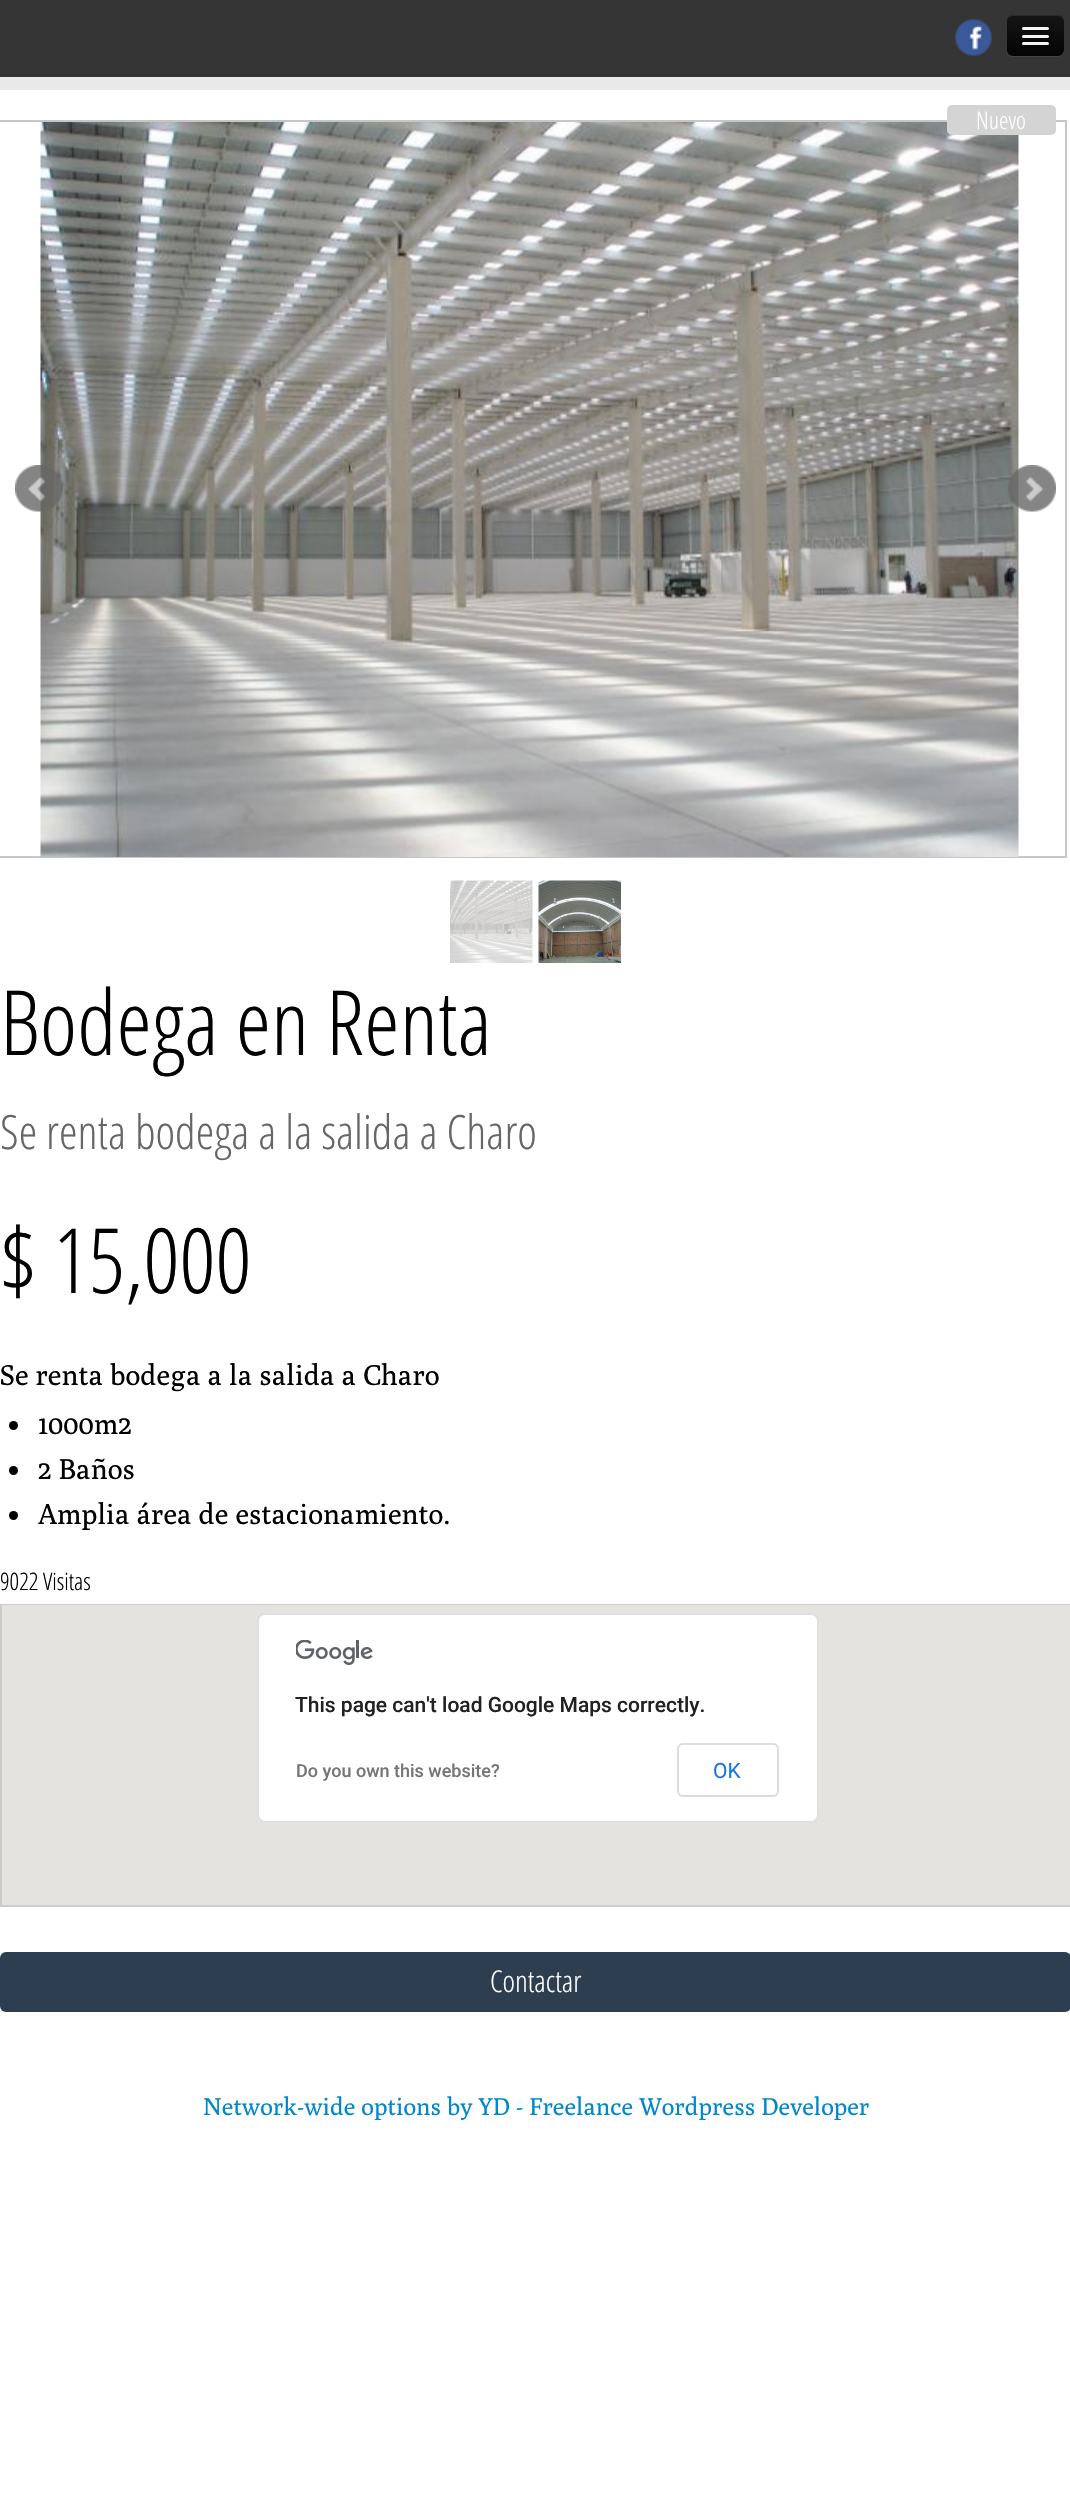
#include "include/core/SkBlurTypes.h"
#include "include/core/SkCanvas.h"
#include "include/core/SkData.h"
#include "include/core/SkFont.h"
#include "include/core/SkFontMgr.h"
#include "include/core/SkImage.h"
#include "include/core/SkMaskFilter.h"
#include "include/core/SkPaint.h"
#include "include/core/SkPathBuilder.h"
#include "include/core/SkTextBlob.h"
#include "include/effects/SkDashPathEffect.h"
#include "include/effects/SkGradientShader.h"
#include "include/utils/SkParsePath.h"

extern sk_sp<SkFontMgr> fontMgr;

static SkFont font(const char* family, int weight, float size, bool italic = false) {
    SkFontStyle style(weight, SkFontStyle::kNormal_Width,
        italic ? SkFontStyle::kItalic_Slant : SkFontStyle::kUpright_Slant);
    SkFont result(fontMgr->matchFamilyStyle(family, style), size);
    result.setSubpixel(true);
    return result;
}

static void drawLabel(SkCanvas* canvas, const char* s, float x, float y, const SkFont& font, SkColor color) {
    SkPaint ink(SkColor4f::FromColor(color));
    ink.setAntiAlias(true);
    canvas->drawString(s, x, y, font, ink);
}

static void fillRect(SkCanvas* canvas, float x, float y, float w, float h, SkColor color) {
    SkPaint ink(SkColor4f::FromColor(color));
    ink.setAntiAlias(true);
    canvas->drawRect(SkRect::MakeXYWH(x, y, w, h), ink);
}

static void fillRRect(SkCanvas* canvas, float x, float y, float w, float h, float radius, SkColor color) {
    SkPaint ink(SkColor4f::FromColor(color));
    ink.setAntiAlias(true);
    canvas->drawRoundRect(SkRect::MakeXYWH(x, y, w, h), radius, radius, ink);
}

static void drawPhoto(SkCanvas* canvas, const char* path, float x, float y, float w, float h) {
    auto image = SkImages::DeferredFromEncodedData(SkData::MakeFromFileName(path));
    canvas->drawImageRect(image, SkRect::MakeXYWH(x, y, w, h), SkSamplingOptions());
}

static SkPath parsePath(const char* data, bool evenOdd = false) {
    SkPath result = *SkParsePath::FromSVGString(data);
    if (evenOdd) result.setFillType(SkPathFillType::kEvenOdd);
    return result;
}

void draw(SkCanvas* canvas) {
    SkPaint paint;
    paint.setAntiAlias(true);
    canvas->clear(0xFFFFFFFF);
    fillRect(canvas, 0, 0, 1070, 77, 0xFF353535);
    drawPhoto(canvas, "assets/img1.png", 955, 19, 37, 37);
    paint.setColor(0xFF444444);
    canvas->drawPath(parsePath("M1007 52C1008 55 1010 57 1013 57H1058C1061 57 1064 54 1064 51V23L1063 21L1064 45C1064 56 1061 56 1050 56H1020C1016 56 1009 57 1007 52Z"), paint);
    {
        const SkColor colors[] = {0xFF151515, 0xFF040404};
        const float stops[] = {0, 1};
        const SkPoint ends[] = {{1035, 15}, {1035, 56}};
        paint.setShader(SkGradientShader::MakeLinear(ends, colors, stops, 2, SkTileMode::kClamp));
        paint.setAlpha(255);
    }
    canvas->drawRoundRect(SkRect::MakeXYWH(1007, 15, 57, 41), 6, 6, paint);
    paint.setShader(nullptr);
    paint.setColor(0xFF2C2C2C);
    canvas->drawPath(parsePath("M1012 16H1058C1061 16 1064 19 1064 22V21C1064 18 1061 15 1058 15H1013C1011 15 1009 16 1008 18C1009 17 1011 16 1012 16Z"), paint);
    paint.setColor(0xFF0B0B0B);
    canvas->drawPath(parsePath("M1022 30C1020.5 33 1027.5 32 1027.5 32H1048C1049 31.5 1049.5 30 1048.5 29L1047 30C1045 30.5 1023 30.5 1022 30Z"), paint);
    fillRRect(canvas, 1022, 27, 27, 3, 1.5f, 0xFFF5F5F5);
    paint.setColor(0xFF080808);
    canvas->drawPath(parsePath("M1022 37C1021.5 40 1027 39 1027.5 39H1047.5C1049 39 1049.5 37 1048.5 36.5L1047.5 37.5C1046 38 1022.5 37.5 1022 37Z"), paint);
    fillRRect(canvas, 1022, 35, 27, 3, 1.5f, 0xFFF5F5F5);
    fillRRect(canvas, 1022, 42, 27, 3, 1.5f, 0xFFF5F5F5);
    fillRect(canvas, 0, 77, 1070, 13, 0xFFE9E9E9);
    paint.setStroke(true);
    paint.setStrokeWidth(2);
    paint.setColor(0xFFC6C6C6);
    canvas->drawRect(SkRect::MakeXYWH(-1, 121, 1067, 736), paint);
    drawPhoto(canvas, "assets/img3.png", 40, 122, 979, 735);
    fillRRect(canvas, 947, 105, 109, 30, 5, 0xFFD4D4D4);
    SkFont font1 = font("Open Sans Condensed", 300, 24);
    drawLabel(canvas, "Nuevo", 976, 129, font1, 0xFFFFFFFF);
    SkFont font2 = font("Open Sans Condensed", 300, 90);
    drawLabel(canvas, "Bodega en Renta", 0, 1055, font2, 0xFF000000);
    SkFont font3 = font("Open Sans Condensed", 300, 47.25f);
    drawLabel(canvas, "Se renta bodega a la salida a Charo", 0, 1149, font3, 0xFF666666);
    drawLabel(canvas, "$ 15,000", 0, 1293, font2, 0xFF000000);
    SkFont font4 = font("Poly", 400, 28.5f);
    drawLabel(canvas, "Se renta bodega a la salida a Charo", 0, 1385, font4, 0xFF000000);
    paint.setStroke(false);
    paint.setColor(0xFF000000);
    canvas->drawCircle(13.5f, 1425.5f, 4.5f, paint);
    drawLabel(canvas, "1000m2", 38, 1434, font4, 0xFF000000);
    canvas->drawCircle(13.5f, 1470.5f, 4.5f, paint);
    drawLabel(canvas, "2 Baños", 38, 1479, font4, 0xFF000000);
    canvas->drawCircle(13.5f, 1515.5f, 4.5f, paint);
    drawLabel(canvas, "Amplia área de estacionamiento.", 38, 1524, font4, 0xFF000000);
    drawLabel(canvas, "9022 Visitas", 0, 1590, font1, 0xFF000000);
    paint.setStroke(true);
    paint.setColor(0xFFCCCCCC);
    canvas->drawRect(SkRect::MakeXYWH(1, 1605, 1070, 301), paint);
    fillRect(canvas, 2, 1605, 1068, 300, 0xFFE5E3DF);
    fillRRect(canvas, 257, 1613, 562, 210, 8, 0xFFFFFFFF);
    paint.setColor(0x1F000000);
    canvas->drawRoundRect(SkRect::MakeXYWH(258, 1614, 560, 208), 7, 7, paint);
    drawPhoto(canvas, "assets/img2.png", 296, 1640, 77, 25);
    SkFont font5 = font("Roboto", 500, 21);
    drawLabel(canvas, "This page can't load Google Maps correctly.", 295, 1712, font5, 0xFF212121);
    SkFont font6 = font("Roboto", 500, 18);
    drawLabel(canvas, "Do you own this website?", 296, 1777, font6, 0xFF757575);
    paint.setColor(0xFFDADCE0);
    canvas->drawRoundRect(SkRect::MakeXYWH(678, 1744, 100, 52), 5, 5, paint);
    SkFont font7 = font("Roboto", 400, 21);
    drawLabel(canvas, "OK", 713, 1778, font7, 0xFF1A73E8);
    fillRRect(canvas, 0, 1952, 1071, 60, 6, 0xFF2C3E50);
    SkFont font8 = font("Open Sans Condensed", 300, 30);
    drawLabel(canvas, "Contactar", 490, 1992, font8, 0xFFFFFFFF);
    drawPhoto(canvas, "assets/img4.png", 15, 465, 48, 47);
    drawPhoto(canvas, "assets/img5.png", 1008, 465, 48, 47);
    drawPhoto(canvas, "assets/img6.png", 450, 880, 83, 83);
    drawPhoto(canvas, "assets/img7.png", 538, 880, 83, 83);
    SkFont font9 = font("Poly", 400, 24.25f);
    drawLabel(canvas, "Network-wide options by YD - Freelance Wordpress Developer", 203, 2115, font9, 0xFF0088CC);
}
